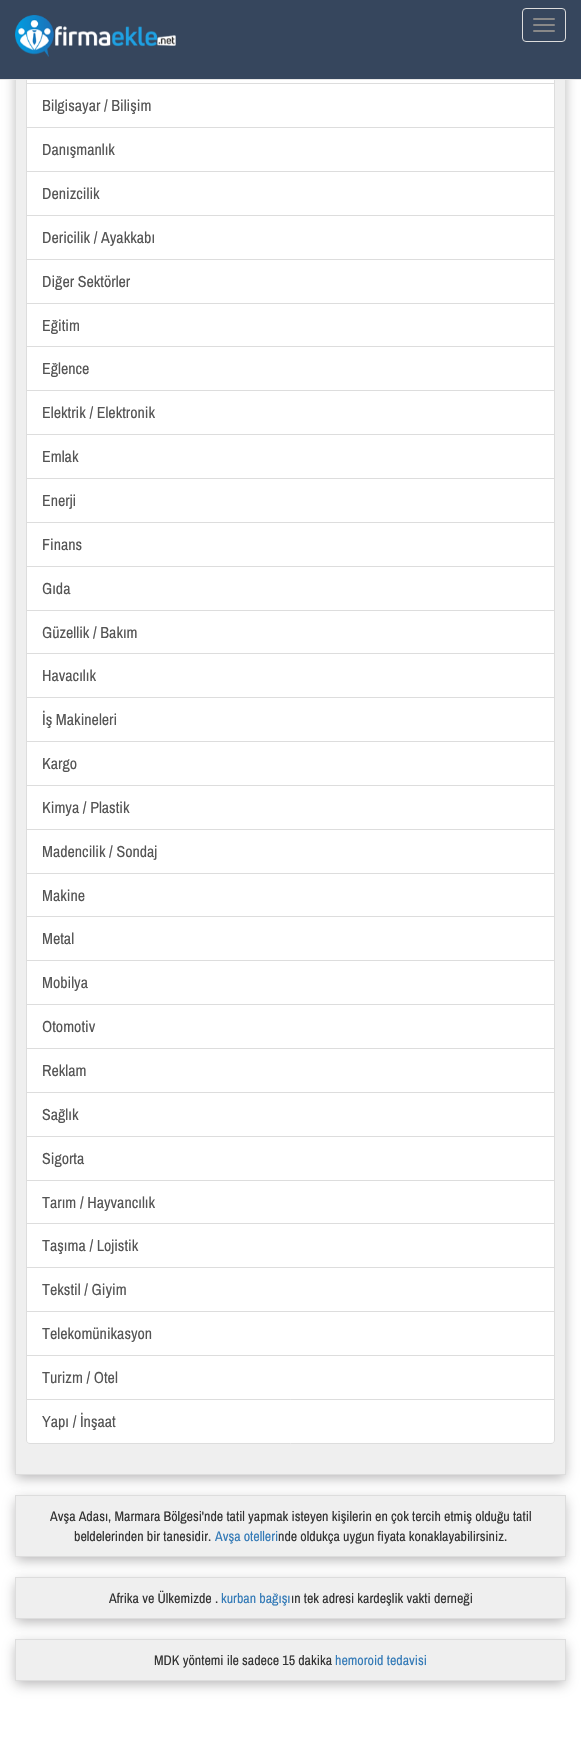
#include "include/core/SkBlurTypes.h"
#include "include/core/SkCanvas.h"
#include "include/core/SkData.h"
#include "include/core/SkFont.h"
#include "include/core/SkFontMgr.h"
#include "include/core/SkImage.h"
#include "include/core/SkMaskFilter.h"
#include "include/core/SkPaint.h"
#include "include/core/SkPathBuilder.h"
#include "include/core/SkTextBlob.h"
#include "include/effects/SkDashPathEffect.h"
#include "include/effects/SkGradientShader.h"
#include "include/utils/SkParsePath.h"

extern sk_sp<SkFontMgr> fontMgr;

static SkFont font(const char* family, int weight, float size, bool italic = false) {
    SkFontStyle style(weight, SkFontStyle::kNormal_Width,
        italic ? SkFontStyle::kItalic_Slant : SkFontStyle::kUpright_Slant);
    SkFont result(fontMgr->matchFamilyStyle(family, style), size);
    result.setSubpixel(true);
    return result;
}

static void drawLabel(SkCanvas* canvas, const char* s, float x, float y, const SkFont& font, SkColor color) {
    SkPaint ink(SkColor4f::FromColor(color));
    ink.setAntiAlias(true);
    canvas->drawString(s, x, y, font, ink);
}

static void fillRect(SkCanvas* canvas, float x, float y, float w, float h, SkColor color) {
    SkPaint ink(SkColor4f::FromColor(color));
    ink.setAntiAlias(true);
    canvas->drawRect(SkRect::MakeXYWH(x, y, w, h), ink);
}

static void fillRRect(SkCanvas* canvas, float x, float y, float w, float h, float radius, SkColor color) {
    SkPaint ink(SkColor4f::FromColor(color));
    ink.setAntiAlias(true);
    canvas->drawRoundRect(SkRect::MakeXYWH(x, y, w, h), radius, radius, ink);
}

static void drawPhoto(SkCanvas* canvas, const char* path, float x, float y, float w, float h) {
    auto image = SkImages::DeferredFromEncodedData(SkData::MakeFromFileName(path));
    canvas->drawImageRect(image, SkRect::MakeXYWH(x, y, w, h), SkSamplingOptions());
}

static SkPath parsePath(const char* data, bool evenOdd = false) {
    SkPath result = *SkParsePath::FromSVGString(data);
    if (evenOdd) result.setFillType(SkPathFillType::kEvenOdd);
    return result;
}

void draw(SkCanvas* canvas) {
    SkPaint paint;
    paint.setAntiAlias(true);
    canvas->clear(0xFFFFFFFF);
    paint.setColor(0x96828082);
    paint.setMaskFilter(SkMaskFilter::MakeBlur(kNormal_SkBlurStyle, 6));
    canvas->drawRect(SkRect::MakeXYWH(16, -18, 549, 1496), paint);
    paint.setMaskFilter(nullptr);
    fillRect(canvas, 16, 80, 549, 1394, 0xFFEFEFEF);
    paint.setStroke(true);
    paint.setStrokeWidth(1);
    paint.setColor(0xFFDDDDDD);
    canvas->drawRect(SkRect::MakeXYWH(15.5f, -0.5f, 550, 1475), paint);
    fillRect(canvas, 27, 80, 527, 3, 0xFFFFFFFF);
    canvas->drawRect(SkRect::MakeXYWH(26.5f, 40.5f, 528, 43), paint);
    fillRect(canvas, 0, 0, 581, 79, 0xFF36465D);
    fillRect(canvas, 0, 79, 581, 1, 0xFFE7E7E7);
    drawPhoto(canvas, "assets/img1.png", 15, 15, 161, 42);
    canvas->drawRoundRect(SkRect::MakeXYWH(522.5f, 8.5f, 43, 33), 3.5f, 3.5f, paint);
    fillRRect(canvas, 533, 18, 22, 2, 1, 0xFF888888);
    fillRRect(canvas, 533, 24, 22, 2, 1, 0xFF888888);
    fillRRect(canvas, 533, 30, 22, 2, 1, 0xFF888888);
    paint.setStroke(false);
    paint.setColor(0xFFFFFFFF);
    canvas->drawRect(SkRect::MakeXYWH(26.5f, 83.5f, 528, 44), paint);
    paint.setStroke(true);
    paint.setColor(0xFFDDDDDD);
    canvas->drawRect(SkRect::MakeXYWH(26.5f, 83.5f, 528, 44), paint);
    SkFont font1 = font("Archivo Narrow", 400, 16);
    drawLabel(canvas, "Bilgisayar / Bilişim", 42, 111, font1, 0xFF555555);
    paint.setStroke(false);
    paint.setColor(0xFFFFFFFF);
    canvas->drawRect(SkRect::MakeXYWH(26.5f, 127.5f, 528, 44), paint);
    paint.setStroke(true);
    paint.setColor(0xFFDDDDDD);
    canvas->drawRect(SkRect::MakeXYWH(26.5f, 127.5f, 528, 44), paint);
    drawLabel(canvas, "Danışmanlık", 42, 155, font1, 0xFF555555);
    paint.setStroke(false);
    paint.setColor(0xFFFFFFFF);
    canvas->drawRect(SkRect::MakeXYWH(26.5f, 171.5f, 528, 44), paint);
    paint.setStroke(true);
    paint.setColor(0xFFDDDDDD);
    canvas->drawRect(SkRect::MakeXYWH(26.5f, 171.5f, 528, 44), paint);
    drawLabel(canvas, "Denizcilik", 42, 199, font1, 0xFF555555);
    paint.setStroke(false);
    paint.setColor(0xFFFFFFFF);
    canvas->drawRect(SkRect::MakeXYWH(26.5f, 215.5f, 528, 44), paint);
    paint.setStroke(true);
    paint.setColor(0xFFDDDDDD);
    canvas->drawRect(SkRect::MakeXYWH(26.5f, 215.5f, 528, 44), paint);
    drawLabel(canvas, "Dericilik / Ayakkabı", 42, 243, font1, 0xFF555555);
    paint.setStroke(false);
    paint.setColor(0xFFFFFFFF);
    canvas->drawRect(SkRect::MakeXYWH(26.5f, 259.5f, 528, 44), paint);
    paint.setStroke(true);
    paint.setColor(0xFFDDDDDD);
    canvas->drawRect(SkRect::MakeXYWH(26.5f, 259.5f, 528, 44), paint);
    drawLabel(canvas, "Diğer Sektörler", 42, 287, font1, 0xFF555555);
    paint.setStroke(false);
    paint.setColor(0xFFFFFFFF);
    canvas->drawRect(SkRect::MakeXYWH(26.5f, 303.5f, 528, 43), paint);
    paint.setStroke(true);
    paint.setColor(0xFFDDDDDD);
    canvas->drawRect(SkRect::MakeXYWH(26.5f, 303.5f, 528, 43), paint);
    drawLabel(canvas, "Eğitim", 42, 331, font1, 0xFF555555);
    paint.setStroke(false);
    paint.setColor(0xFFFFFFFF);
    canvas->drawRect(SkRect::MakeXYWH(26.5f, 346.5f, 528, 44), paint);
    paint.setStroke(true);
    paint.setColor(0xFFDDDDDD);
    canvas->drawRect(SkRect::MakeXYWH(26.5f, 346.5f, 528, 44), paint);
    drawLabel(canvas, "Eğlence", 42, 374, font1, 0xFF555555);
    paint.setStroke(false);
    paint.setColor(0xFFFFFFFF);
    canvas->drawRect(SkRect::MakeXYWH(26.5f, 390.5f, 528, 44), paint);
    paint.setStroke(true);
    paint.setColor(0xFFDDDDDD);
    canvas->drawRect(SkRect::MakeXYWH(26.5f, 390.5f, 528, 44), paint);
    drawLabel(canvas, "Elektrik / Elektronik", 42, 418, font1, 0xFF555555);
    paint.setStroke(false);
    paint.setColor(0xFFFFFFFF);
    canvas->drawRect(SkRect::MakeXYWH(26.5f, 434.5f, 528, 44), paint);
    paint.setStroke(true);
    paint.setColor(0xFFDDDDDD);
    canvas->drawRect(SkRect::MakeXYWH(26.5f, 434.5f, 528, 44), paint);
    drawLabel(canvas, "Emlak", 42, 462, font1, 0xFF555555);
    paint.setStroke(false);
    paint.setColor(0xFFFFFFFF);
    canvas->drawRect(SkRect::MakeXYWH(26.5f, 478.5f, 528, 44), paint);
    paint.setStroke(true);
    paint.setColor(0xFFDDDDDD);
    canvas->drawRect(SkRect::MakeXYWH(26.5f, 478.5f, 528, 44), paint);
    drawLabel(canvas, "Enerji", 42, 506, font1, 0xFF555555);
    paint.setStroke(false);
    paint.setColor(0xFFFFFFFF);
    canvas->drawRect(SkRect::MakeXYWH(26.5f, 522.5f, 528, 44), paint);
    paint.setStroke(true);
    paint.setColor(0xFFDDDDDD);
    canvas->drawRect(SkRect::MakeXYWH(26.5f, 522.5f, 528, 44), paint);
    drawLabel(canvas, "Finans", 42, 550, font1, 0xFF555555);
    paint.setStroke(false);
    paint.setColor(0xFFFFFFFF);
    canvas->drawRect(SkRect::MakeXYWH(26.5f, 566.5f, 528, 44), paint);
    paint.setStroke(true);
    paint.setColor(0xFFDDDDDD);
    canvas->drawRect(SkRect::MakeXYWH(26.5f, 566.5f, 528, 44), paint);
    drawLabel(canvas, "Gıda", 42, 594, font1, 0xFF555555);
    paint.setStroke(false);
    paint.setColor(0xFFFFFFFF);
    canvas->drawRect(SkRect::MakeXYWH(26.5f, 610.5f, 528, 43), paint);
    paint.setStroke(true);
    paint.setColor(0xFFDDDDDD);
    canvas->drawRect(SkRect::MakeXYWH(26.5f, 610.5f, 528, 43), paint);
    drawLabel(canvas, "Güzellik / Bakım", 42, 638, font1, 0xFF555555);
    paint.setStroke(false);
    paint.setColor(0xFFFFFFFF);
    canvas->drawRect(SkRect::MakeXYWH(26.5f, 653.5f, 528, 44), paint);
    paint.setStroke(true);
    paint.setColor(0xFFDDDDDD);
    canvas->drawRect(SkRect::MakeXYWH(26.5f, 653.5f, 528, 44), paint);
    drawLabel(canvas, "Havacılık", 42, 681, font1, 0xFF555555);
    paint.setStroke(false);
    paint.setColor(0xFFFFFFFF);
    canvas->drawRect(SkRect::MakeXYWH(26.5f, 697.5f, 528, 44), paint);
    paint.setStroke(true);
    paint.setColor(0xFFDDDDDD);
    canvas->drawRect(SkRect::MakeXYWH(26.5f, 697.5f, 528, 44), paint);
    drawLabel(canvas, "İş Makineleri", 42, 725, font1, 0xFF555555);
    paint.setStroke(false);
    paint.setColor(0xFFFFFFFF);
    canvas->drawRect(SkRect::MakeXYWH(26.5f, 741.5f, 528, 44), paint);
    paint.setStroke(true);
    paint.setColor(0xFFDDDDDD);
    canvas->drawRect(SkRect::MakeXYWH(26.5f, 741.5f, 528, 44), paint);
    drawLabel(canvas, "Kargo", 42, 769, font1, 0xFF555555);
    paint.setStroke(false);
    paint.setColor(0xFFFFFFFF);
    canvas->drawRect(SkRect::MakeXYWH(26.5f, 785.5f, 528, 44), paint);
    paint.setStroke(true);
    paint.setColor(0xFFDDDDDD);
    canvas->drawRect(SkRect::MakeXYWH(26.5f, 785.5f, 528, 44), paint);
    drawLabel(canvas, "Kimya / Plastik", 42, 813, font1, 0xFF555555);
    paint.setStroke(false);
    paint.setColor(0xFFFFFFFF);
    canvas->drawRect(SkRect::MakeXYWH(26.5f, 829.5f, 528, 44), paint);
    paint.setStroke(true);
    paint.setColor(0xFFDDDDDD);
    canvas->drawRect(SkRect::MakeXYWH(26.5f, 829.5f, 528, 44), paint);
    drawLabel(canvas, "Madencilik / Sondaj", 42, 857, font1, 0xFF555555);
    paint.setStroke(false);
    paint.setColor(0xFFFFFFFF);
    canvas->drawRect(SkRect::MakeXYWH(26.5f, 873.5f, 528, 43), paint);
    paint.setStroke(true);
    paint.setColor(0xFFDDDDDD);
    canvas->drawRect(SkRect::MakeXYWH(26.5f, 873.5f, 528, 43), paint);
    drawLabel(canvas, "Makine", 42, 901, font1, 0xFF555555);
    paint.setStroke(false);
    paint.setColor(0xFFFFFFFF);
    canvas->drawRect(SkRect::MakeXYWH(26.5f, 916.5f, 528, 44), paint);
    paint.setStroke(true);
    paint.setColor(0xFFDDDDDD);
    canvas->drawRect(SkRect::MakeXYWH(26.5f, 916.5f, 528, 44), paint);
    drawLabel(canvas, "Metal", 42, 944, font1, 0xFF555555);
    paint.setStroke(false);
    paint.setColor(0xFFFFFFFF);
    canvas->drawRect(SkRect::MakeXYWH(26.5f, 960.5f, 528, 44), paint);
    paint.setStroke(true);
    paint.setColor(0xFFDDDDDD);
    canvas->drawRect(SkRect::MakeXYWH(26.5f, 960.5f, 528, 44), paint);
    drawLabel(canvas, "Mobilya", 42, 988, font1, 0xFF555555);
    paint.setStroke(false);
    paint.setColor(0xFFFFFFFF);
    canvas->drawRect(SkRect::MakeXYWH(26.5f, 1004.5f, 528, 44), paint);
    paint.setStroke(true);
    paint.setColor(0xFFDDDDDD);
    canvas->drawRect(SkRect::MakeXYWH(26.5f, 1004.5f, 528, 44), paint);
    drawLabel(canvas, "Otomotiv", 42, 1032, font1, 0xFF555555);
    paint.setStroke(false);
    paint.setColor(0xFFFFFFFF);
    canvas->drawRect(SkRect::MakeXYWH(26.5f, 1048.5f, 528, 44), paint);
    paint.setStroke(true);
    paint.setColor(0xFFDDDDDD);
    canvas->drawRect(SkRect::MakeXYWH(26.5f, 1048.5f, 528, 44), paint);
    drawLabel(canvas, "Reklam", 42, 1076, font1, 0xFF555555);
    paint.setStroke(false);
    paint.setColor(0xFFFFFFFF);
    canvas->drawRect(SkRect::MakeXYWH(26.5f, 1092.5f, 528, 44), paint);
    paint.setStroke(true);
    paint.setColor(0xFFDDDDDD);
    canvas->drawRect(SkRect::MakeXYWH(26.5f, 1092.5f, 528, 44), paint);
    drawLabel(canvas, "Sağlık", 42, 1120, font1, 0xFF555555);
    paint.setStroke(false);
    paint.setColor(0xFFFFFFFF);
    canvas->drawRect(SkRect::MakeXYWH(26.5f, 1136.5f, 528, 44), paint);
    paint.setStroke(true);
    paint.setColor(0xFFDDDDDD);
    canvas->drawRect(SkRect::MakeXYWH(26.5f, 1136.5f, 528, 44), paint);
    drawLabel(canvas, "Sigorta", 42, 1164, font1, 0xFF555555);
    paint.setStroke(false);
    paint.setColor(0xFFFFFFFF);
    canvas->drawRect(SkRect::MakeXYWH(26.5f, 1180.5f, 528, 43), paint);
    paint.setStroke(true);
    paint.setColor(0xFFDDDDDD);
    canvas->drawRect(SkRect::MakeXYWH(26.5f, 1180.5f, 528, 43), paint);
    drawLabel(canvas, "Tarım / Hayvancılık", 42, 1208, font1, 0xFF555555);
    paint.setStroke(false);
    paint.setColor(0xFFFFFFFF);
    canvas->drawRect(SkRect::MakeXYWH(26.5f, 1223.5f, 528, 44), paint);
    paint.setStroke(true);
    paint.setColor(0xFFDDDDDD);
    canvas->drawRect(SkRect::MakeXYWH(26.5f, 1223.5f, 528, 44), paint);
    drawLabel(canvas, "Taşıma / Lojistik", 42, 1251, font1, 0xFF555555);
    paint.setStroke(false);
    paint.setColor(0xFFFFFFFF);
    canvas->drawRect(SkRect::MakeXYWH(26.5f, 1267.5f, 528, 44), paint);
    paint.setStroke(true);
    paint.setColor(0xFFDDDDDD);
    canvas->drawRect(SkRect::MakeXYWH(26.5f, 1267.5f, 528, 44), paint);
    drawLabel(canvas, "Tekstil / Giyim", 42, 1295, font1, 0xFF555555);
    paint.setStroke(false);
    paint.setColor(0xFFFFFFFF);
    canvas->drawRect(SkRect::MakeXYWH(26.5f, 1311.5f, 528, 44), paint);
    paint.setStroke(true);
    paint.setColor(0xFFDDDDDD);
    canvas->drawRect(SkRect::MakeXYWH(26.5f, 1311.5f, 528, 44), paint);
    drawLabel(canvas, "Telekomünikasyon", 42, 1339, font1, 0xFF555555);
    paint.setStroke(false);
    paint.setColor(0xFFFFFFFF);
    canvas->drawRect(SkRect::MakeXYWH(26.5f, 1355.5f, 528, 44), paint);
    paint.setStroke(true);
    paint.setColor(0xFFDDDDDD);
    canvas->drawRect(SkRect::MakeXYWH(26.5f, 1355.5f, 528, 44), paint);
    drawLabel(canvas, "Turizm / Otel", 42, 1383, font1, 0xFF555555);
    paint.setStroke(false);
    paint.setColor(0xFFFFFFFF);
    canvas->drawPath(parsePath("M26.5 1399.5H554.5V1440C554.5 1442 553 1443.5 551 1443.5H30C28 1443.5 26.5 1442 26.5 1440Z"), paint);
    paint.setStroke(true);
    paint.setColor(0xFFDDDDDD);
    canvas->drawPath(parsePath("M26.5 1399.5H554.5V1440C554.5 1442 553 1443.5 551 1443.5H30C28 1443.5 26.5 1442 26.5 1440Z"), paint);
    drawLabel(canvas, "Yapı / İnşaat", 42, 1427, font1, 0xFF555555);
    paint.setStroke(false);
    paint.setColor(0x96828082);
    paint.setMaskFilter(SkMaskFilter::MakeBlur(kNormal_SkBlurStyle, 6));
    canvas->drawRect(SkRect::MakeXYWH(16, 1500, 549, 60), paint);
    paint.setMaskFilter(nullptr);
    paint.setColor(0xFFEFEFEF);
    canvas->drawRect(SkRect::MakeXYWH(15.5f, 1495.5f, 550, 61), paint);
    paint.setStroke(true);
    paint.setColor(0xFFDDDDDD);
    canvas->drawRect(SkRect::MakeXYWH(15.5f, 1495.5f, 550, 61), paint);
    SkFont font2 = font("Archivo Narrow", 400, 14);
    drawLabel(canvas, "Avşa Adası, Marmara Bölgesi'nde tatil yapmak isteyen kişilerin en çok tercih etmiş olduğu tatil", 50, 1521, font2, 0xFF333333);
    drawLabel(canvas, "beldelerinden bir tanesidir.", 74, 1541, font2, 0xFF333333);
    drawLabel(canvas, "Avşa otelleri", 215, 1541, font2, 0xFF337AB7);
    drawLabel(canvas, "nde oldukça uygun fiyata konaklayabilirsiniz.", 278, 1541, font2, 0xFF333333);
    paint.setStroke(false);
    paint.setColor(0x96828082);
    paint.setMaskFilter(SkMaskFilter::MakeBlur(kNormal_SkBlurStyle, 6));
    canvas->drawRect(SkRect::MakeXYWH(16, 1582, 549, 40), paint);
    paint.setMaskFilter(nullptr);
    paint.setColor(0xFFEFEFEF);
    canvas->drawRect(SkRect::MakeXYWH(15.5f, 1577.5f, 550, 41), paint);
    paint.setStroke(true);
    paint.setColor(0xFFDDDDDD);
    canvas->drawRect(SkRect::MakeXYWH(15.5f, 1577.5f, 550, 41), paint);
    drawLabel(canvas, "Afrika ve Ülkemizde .", 109, 1603, font2, 0xFF333333);
    drawLabel(canvas, "kurban bağışı", 221, 1603, font2, 0xFF337AB7);
    drawLabel(canvas, "ın tek adresi kardeşlik vakti derneği", 291, 1603, font2, 0xFF333333);
    paint.setStroke(false);
    paint.setColor(0x96828082);
    paint.setMaskFilter(SkMaskFilter::MakeBlur(kNormal_SkBlurStyle, 6));
    canvas->drawRect(SkRect::MakeXYWH(16, 1644, 549, 40), paint);
    paint.setMaskFilter(nullptr);
    paint.setColor(0xFFEFEFEF);
    canvas->drawRect(SkRect::MakeXYWH(15.5f, 1639.5f, 550, 41), paint);
    paint.setStroke(true);
    paint.setColor(0xFFDDDDDD);
    canvas->drawRect(SkRect::MakeXYWH(15.5f, 1639.5f, 550, 41), paint);
    drawLabel(canvas, "MDK yöntemi ile sadece 15 dakika", 154, 1665, font2, 0xFF333333);
    drawLabel(canvas, "hemoroid tedavisi", 335, 1665, font2, 0xFF337AB7);
}
